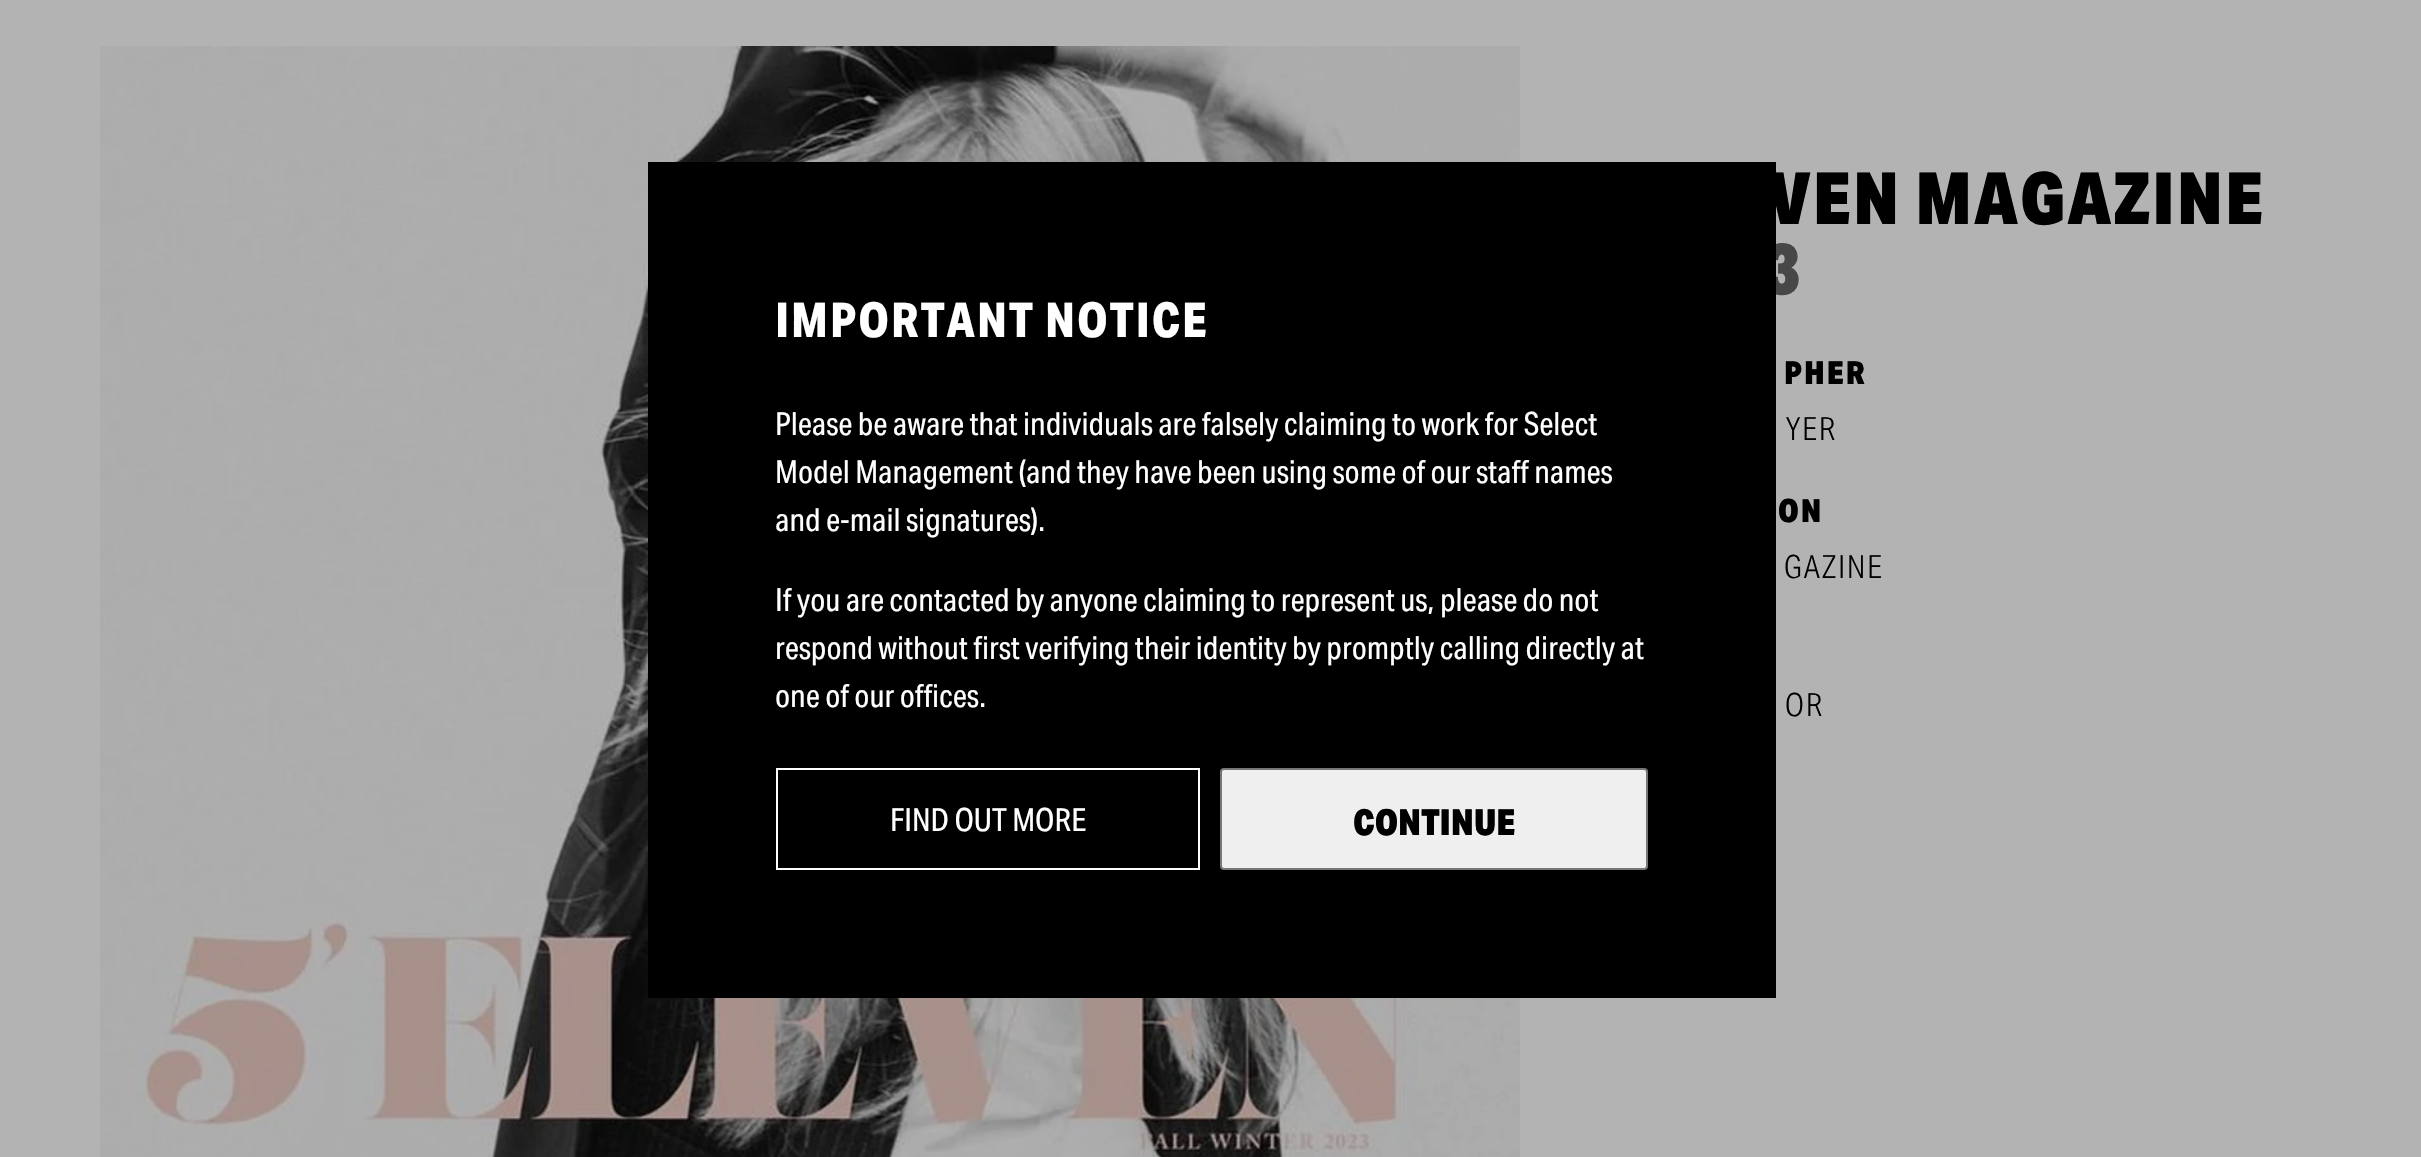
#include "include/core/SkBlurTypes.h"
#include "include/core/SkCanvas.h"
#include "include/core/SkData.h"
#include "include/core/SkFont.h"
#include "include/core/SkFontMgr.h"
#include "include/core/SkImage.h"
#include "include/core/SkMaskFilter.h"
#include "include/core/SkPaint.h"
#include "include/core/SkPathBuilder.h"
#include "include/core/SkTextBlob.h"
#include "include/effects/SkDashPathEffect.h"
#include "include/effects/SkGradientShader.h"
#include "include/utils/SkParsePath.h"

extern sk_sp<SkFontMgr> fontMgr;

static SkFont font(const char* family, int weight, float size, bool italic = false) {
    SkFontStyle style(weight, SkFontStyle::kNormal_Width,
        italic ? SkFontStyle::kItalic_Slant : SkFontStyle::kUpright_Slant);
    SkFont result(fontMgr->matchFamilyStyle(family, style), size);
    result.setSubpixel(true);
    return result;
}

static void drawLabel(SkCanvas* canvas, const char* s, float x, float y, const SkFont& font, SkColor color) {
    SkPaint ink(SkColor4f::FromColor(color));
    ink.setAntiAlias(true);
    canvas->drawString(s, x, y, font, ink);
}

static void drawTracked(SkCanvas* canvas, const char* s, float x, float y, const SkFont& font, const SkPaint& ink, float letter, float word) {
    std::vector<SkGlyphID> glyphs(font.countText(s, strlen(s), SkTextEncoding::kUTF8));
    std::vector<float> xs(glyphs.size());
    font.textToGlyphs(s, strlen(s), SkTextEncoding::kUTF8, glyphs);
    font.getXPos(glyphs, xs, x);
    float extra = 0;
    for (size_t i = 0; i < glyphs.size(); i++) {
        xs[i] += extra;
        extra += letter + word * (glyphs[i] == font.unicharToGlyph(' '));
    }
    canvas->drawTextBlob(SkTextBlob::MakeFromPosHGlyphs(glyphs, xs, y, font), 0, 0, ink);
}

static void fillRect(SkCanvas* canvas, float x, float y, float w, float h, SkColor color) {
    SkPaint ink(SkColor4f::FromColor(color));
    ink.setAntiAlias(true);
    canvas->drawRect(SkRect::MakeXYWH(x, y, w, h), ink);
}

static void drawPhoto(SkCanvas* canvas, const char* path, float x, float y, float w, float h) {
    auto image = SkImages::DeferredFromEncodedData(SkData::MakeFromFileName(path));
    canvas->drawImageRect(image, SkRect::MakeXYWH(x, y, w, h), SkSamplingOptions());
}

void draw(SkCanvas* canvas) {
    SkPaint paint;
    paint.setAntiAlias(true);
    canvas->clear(0xFFB3B3B3);
    drawPhoto(canvas, "assets/img1.png", 100, 46, 1420, 1111);
    SkFont font1 = font("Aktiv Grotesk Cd", 900, 72);
    paint.setColor(0xFF474747);
    drawTracked(canvas, "3", 1764, 294, font1, paint, 2, 0);
    fillRect(canvas, 648, 162, 1128, 836, 0xFF000000);
    SkFont font2 = font("Aktiv Grotesk Cd", 700, 48);
    paint.setColor(0xFFFFFFFF);
    drawTracked(canvas, "IMPORTANT NOTICE", 775, 337, font2, paint, 2, 0);
    SkFont font3 = font("Aktiv Grotesk Cd", 400, 32);
    drawLabel(canvas, "Please be aware that individuals are falsely claiming to work for Select", 775, 435, font3, 0xFFFFFFFF);
    drawLabel(canvas, "Model Management (and they have been using some of our staff names", 775, 483, font3, 0xFFFFFFFF);
    drawLabel(canvas, "and e-mail signatures).", 775, 531, font3, 0xFFFFFFFF);
    drawLabel(canvas, "If you are contacted by anyone claiming to represent us, please do not", 775, 611, font3, 0xFFFFFFFF);
    drawLabel(canvas, "respond without first verifying their identity by promptly calling directly at", 775, 659, font3, 0xFFFFFFFF);
    drawLabel(canvas, "one of our offices.", 775, 707, font3, 0xFFFFFFFF);
    paint.setStroke(true);
    paint.setStrokeWidth(2);
    canvas->drawRect(SkRect::MakeXYWH(777, 769, 422, 100), paint);
    drawLabel(canvas, "FIND OUT MORE", 890, 831, font3, 0xFFFFFFFF);
    paint.setStroke(false);
    paint.setColor(0xFFEFEFEF);
    canvas->drawRoundRect(SkRect::MakeXYWH(1221, 769, 426, 100), 3, 3, paint);
    paint.setStroke(true);
    paint.setColor(0xFF767676);
    canvas->drawRoundRect(SkRect::MakeXYWH(1221, 769, 426, 100), 3, 3, paint);
    SkFont font4 = font("Aktiv Grotesk Cd", 900, 36);
    drawLabel(canvas, "CONTINUE", 1353, 835, font4, 0xFF000000);
    paint.setStroke(false);
    paint.setColor(0xFF000000);
    drawTracked(canvas, "VEN MAGAZINE", 1768, 224, font1, paint, 2, 0);
    SkFont font5 = font("Aktiv Grotesk Cd", 900, 32);
    drawTracked(canvas, "PHER", 1784, 384, font5, paint, 2, 0);
    SkFont font6 = font("Aktiv Grotesk Cd", 300, 32);
    drawTracked(canvas, "YER", 1786, 440, font6, paint, 2, 0);
    drawTracked(canvas, "ON", 1778, 522, font5, paint, 2, 0);
    drawTracked(canvas, "GAZINE", 1784, 578, font6, paint, 2, 0);
    drawTracked(canvas, "OR", 1785, 716, font6, paint, 2, 0);
}
